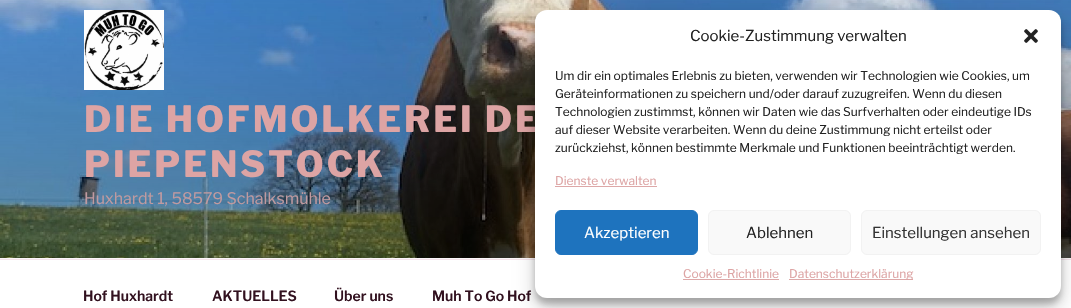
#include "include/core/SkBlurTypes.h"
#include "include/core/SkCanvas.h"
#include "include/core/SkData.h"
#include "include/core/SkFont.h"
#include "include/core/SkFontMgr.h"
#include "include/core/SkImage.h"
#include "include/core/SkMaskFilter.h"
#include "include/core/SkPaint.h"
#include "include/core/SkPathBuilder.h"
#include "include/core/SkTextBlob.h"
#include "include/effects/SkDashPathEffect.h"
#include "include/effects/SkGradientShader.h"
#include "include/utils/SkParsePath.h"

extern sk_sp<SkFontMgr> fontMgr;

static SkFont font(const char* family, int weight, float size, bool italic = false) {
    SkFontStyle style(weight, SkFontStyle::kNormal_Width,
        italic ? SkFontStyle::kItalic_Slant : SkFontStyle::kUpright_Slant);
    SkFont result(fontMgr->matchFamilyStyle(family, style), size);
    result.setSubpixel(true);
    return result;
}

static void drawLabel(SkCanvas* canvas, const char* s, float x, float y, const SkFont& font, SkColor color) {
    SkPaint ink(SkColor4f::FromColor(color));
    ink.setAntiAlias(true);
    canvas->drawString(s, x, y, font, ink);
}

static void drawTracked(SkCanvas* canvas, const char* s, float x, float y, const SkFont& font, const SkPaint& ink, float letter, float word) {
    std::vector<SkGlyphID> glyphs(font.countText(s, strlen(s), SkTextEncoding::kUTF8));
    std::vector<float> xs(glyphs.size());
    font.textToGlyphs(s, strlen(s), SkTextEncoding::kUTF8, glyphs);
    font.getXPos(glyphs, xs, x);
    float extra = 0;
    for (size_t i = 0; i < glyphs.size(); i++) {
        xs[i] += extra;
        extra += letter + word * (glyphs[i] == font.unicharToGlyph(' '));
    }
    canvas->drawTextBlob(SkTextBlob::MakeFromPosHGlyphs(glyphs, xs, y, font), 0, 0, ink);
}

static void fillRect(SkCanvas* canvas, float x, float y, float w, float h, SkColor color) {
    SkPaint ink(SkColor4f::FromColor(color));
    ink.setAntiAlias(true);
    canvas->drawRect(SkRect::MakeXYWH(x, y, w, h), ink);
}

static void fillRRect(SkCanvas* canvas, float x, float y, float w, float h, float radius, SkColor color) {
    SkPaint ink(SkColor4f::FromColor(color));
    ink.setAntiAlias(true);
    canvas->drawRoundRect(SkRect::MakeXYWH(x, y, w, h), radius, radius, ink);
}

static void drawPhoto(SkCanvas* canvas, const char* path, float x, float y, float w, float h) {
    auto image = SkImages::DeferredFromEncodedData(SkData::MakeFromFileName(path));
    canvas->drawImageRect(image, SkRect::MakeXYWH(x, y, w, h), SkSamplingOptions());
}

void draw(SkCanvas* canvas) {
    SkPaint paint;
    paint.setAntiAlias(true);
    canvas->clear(0xFFFCF7FA);
    drawPhoto(canvas, "assets/img1.png", 0, 0, 1071, 258);
    drawPhoto(canvas, "assets/img2.png", 84, 10, 80, 80);
    SkFont font1 = font("Libre Franklin", 800, 36);
    paint.setColor(0xFFDDA4A4);
    drawTracked(canvas, "DIE HOFMOLKEREI DE", 84, 132, font1, paint, 2.9f, 0);
    drawTracked(canvas, "PIEPENSTOCK", 84, 177, font1, paint, 2.9f, 0);
    SkFont font2 = font("Libre Franklin", 400, 16);
    drawLabel(canvas, "Huxhardt 1, 58579 Schalksmühle", 84, 204, font2, 0xFFC09AA0);
    fillRect(canvas, 0, 260, 1071, 48, 0xFFFFFFFF);
    fillRect(canvas, 0, 259, 1071, 1, 0xFFF6E4EC);
    SkFont font3 = font("Libre Franklin", 600, 14);
    drawLabel(canvas, "Hof Huxhardt", 83, 301, font3, 0xFF32111F);
    drawLabel(canvas, "AKTUELLES", 212, 301, font3, 0xFF32111F);
    drawLabel(canvas, "Über uns", 334, 301, font3, 0xFF32111F);
    drawLabel(canvas, "Muh To Go Hof", 432, 301, font3, 0xFF32111F);
    paint.setColor(0x3B000000);
    paint.setMaskFilter(SkMaskFilter::MakeBlur(kNormal_SkBlurStyle, 3));
    canvas->drawRoundRect(SkRect::MakeXYWH(535, 16, 526, 288), 12, 12, paint);
    paint.setMaskFilter(nullptr);
    paint.setColor(0x30000000);
    paint.setMaskFilter(SkMaskFilter::MakeBlur(kNormal_SkBlurStyle, 10));
    canvas->drawRoundRect(SkRect::MakeXYWH(535, 20, 526, 288), 12, 12, paint);
    paint.setMaskFilter(nullptr);
    fillRRect(canvas, 535, 10, 526, 288, 12, 0xFFFFFFFF);
    SkFont font4 = font("Libre Franklin", 400, 15);
    drawLabel(canvas, "Cookie-Zustimmung verwalten", 690, 41, font4, 0xFF222222);
    drawPhoto(canvas, "assets/img3.png", 1024, 29, 14, 14);
    SkFont font5 = font("Libre Franklin", 400, 12);
    drawLabel(canvas, "Um dir ein optimales Erlebnis zu bieten, verwenden wir Technologien wie Cookies, um", 555, 80, font5, 0xFF222222);
    drawLabel(canvas, "Geräteinformationen zu speichern und/oder darauf zuzugreifen. Wenn du diesen", 555, 98, font5, 0xFF222222);
    drawLabel(canvas, "Technologien zustimmst, können wir Daten wie das Surfverhalten oder eindeutige IDs", 555, 116, font5, 0xFF222222);
    drawLabel(canvas, "auf dieser Website verarbeiten. Wenn du deine Zustimmung nicht erteilst oder", 555, 134, font5, 0xFF222222);
    drawLabel(canvas, "zurückziehst, können bestimmte Merkmale und Funktionen beeinträchtigt werden.", 555, 152, font5, 0xFF222222);
    drawLabel(canvas, "Dienste verwalten", 555, 185, font5, 0xFFDDA4A4);
    fillRect(canvas, 555, 186, 102, 1, 0xFFDDA8A8);
    paint.setColor(0xFF1E73BE);
    canvas->drawRoundRect(SkRect::MakeXYWH(555.5f, 210.5f, 142, 44), 5.5f, 5.5f, paint);
    paint.setStroke(true);
    paint.setStrokeWidth(1);
    canvas->drawRoundRect(SkRect::MakeXYWH(555.5f, 210.5f, 142, 44), 5.5f, 5.5f, paint);
    drawLabel(canvas, "Akzeptieren", 584, 238, font4, 0xFFFFFFFF);
    paint.setStroke(false);
    paint.setColor(0xFFF9F9F9);
    canvas->drawRoundRect(SkRect::MakeXYWH(708.5f, 210.5f, 142, 44), 5.5f, 5.5f, paint);
    paint.setStroke(true);
    paint.setColor(0xFFF2F2F2);
    canvas->drawRoundRect(SkRect::MakeXYWH(708.5f, 210.5f, 142, 44), 5.5f, 5.5f, paint);
    drawLabel(canvas, "Ablehnen", 746, 238, font4, 0xFF222222);
    paint.setStroke(false);
    paint.setColor(0xFFF9F9F9);
    canvas->drawRoundRect(SkRect::MakeXYWH(861.5f, 210.5f, 179, 44), 5.5f, 5.5f, paint);
    paint.setStroke(true);
    paint.setColor(0xFFF2F2F2);
    canvas->drawRoundRect(SkRect::MakeXYWH(861.5f, 210.5f, 179, 44), 5.5f, 5.5f, paint);
    drawLabel(canvas, "Einstellungen ansehen", 872, 238, font4, 0xFF333333);
    drawLabel(canvas, "Cookie-Richtlinie", 683, 278, font5, 0xFFDDA4A4);
    fillRect(canvas, 683, 279, 96, 1, 0xFFDDA8A8);
    fillRect(canvas, 789, 279, 124, 1, 0xFFDDA8A8);
    drawLabel(canvas, "Datenschutzerklärung", 789, 278, font5, 0xFFDDA4A4);
}
